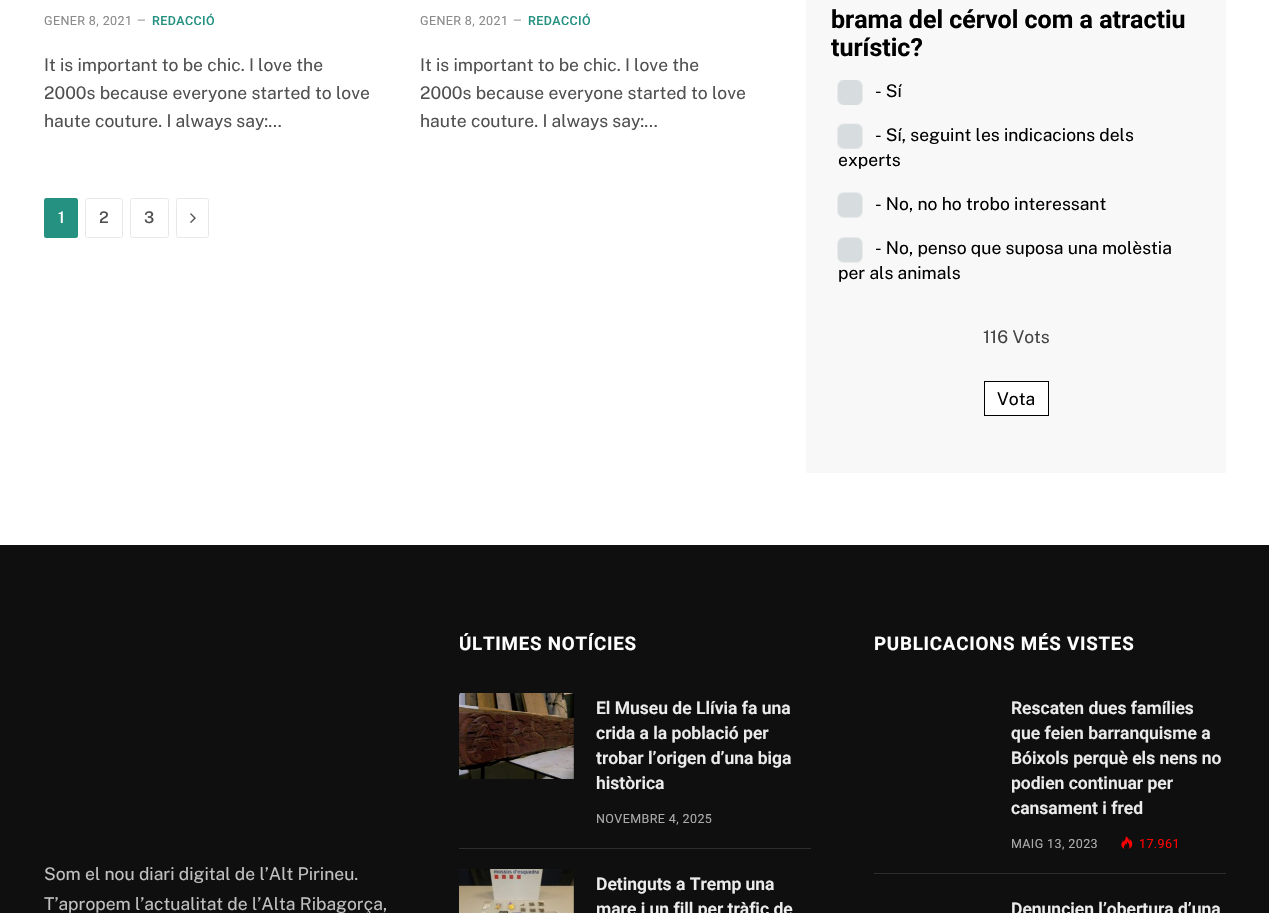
#include "include/core/SkBlurTypes.h"
#include "include/core/SkCanvas.h"
#include "include/core/SkData.h"
#include "include/core/SkFont.h"
#include "include/core/SkFontMgr.h"
#include "include/core/SkImage.h"
#include "include/core/SkMaskFilter.h"
#include "include/core/SkPaint.h"
#include "include/core/SkPathBuilder.h"
#include "include/core/SkTextBlob.h"
#include "include/effects/SkDashPathEffect.h"
#include "include/effects/SkGradientShader.h"
#include "include/utils/SkParsePath.h"

extern sk_sp<SkFontMgr> fontMgr;

static SkFont font(const char* family, int weight, float size, bool italic = false) {
    SkFontStyle style(weight, SkFontStyle::kNormal_Width,
        italic ? SkFontStyle::kItalic_Slant : SkFontStyle::kUpright_Slant);
    SkFont result(fontMgr->matchFamilyStyle(family, style), size);
    result.setSubpixel(true);
    return result;
}

static void drawLabel(SkCanvas* canvas, const char* s, float x, float y, const SkFont& font, SkColor color) {
    SkPaint ink(SkColor4f::FromColor(color));
    ink.setAntiAlias(true);
    canvas->drawString(s, x, y, font, ink);
}

static void drawTracked(SkCanvas* canvas, const char* s, float x, float y, const SkFont& font, const SkPaint& ink, float letter, float word) {
    std::vector<SkGlyphID> glyphs(font.countText(s, strlen(s), SkTextEncoding::kUTF8));
    std::vector<float> xs(glyphs.size());
    font.textToGlyphs(s, strlen(s), SkTextEncoding::kUTF8, glyphs);
    font.getXPos(glyphs, xs, x);
    float extra = 0;
    for (size_t i = 0; i < glyphs.size(); i++) {
        xs[i] += extra;
        extra += letter + word * (glyphs[i] == font.unicharToGlyph(' '));
    }
    canvas->drawTextBlob(SkTextBlob::MakeFromPosHGlyphs(glyphs, xs, y, font), 0, 0, ink);
}

static void fillRect(SkCanvas* canvas, float x, float y, float w, float h, SkColor color) {
    SkPaint ink(SkColor4f::FromColor(color));
    ink.setAntiAlias(true);
    canvas->drawRect(SkRect::MakeXYWH(x, y, w, h), ink);
}

static void fillRRect(SkCanvas* canvas, float x, float y, float w, float h, float radius, SkColor color) {
    SkPaint ink(SkColor4f::FromColor(color));
    ink.setAntiAlias(true);
    canvas->drawRoundRect(SkRect::MakeXYWH(x, y, w, h), radius, radius, ink);
}

static void drawPhoto(SkCanvas* canvas, const char* path, float x, float y, float w, float h) {
    auto image = SkImages::DeferredFromEncodedData(SkData::MakeFromFileName(path));
    canvas->drawImageRect(image, SkRect::MakeXYWH(x, y, w, h), SkSamplingOptions());
}

void draw(SkCanvas* canvas) {
    SkPaint paint;
    paint.setAntiAlias(true);
    canvas->clear(0xFFFFFFFF);
    SkFont font1 = font("Roboto", 400, 12.5f);
    paint.setColor(0xFF8A8A8A);
    drawTracked(canvas, "GENER 8, 2021", 44, 25, font1, paint, 0.4f, 0);
    SkFont font2 = font("Roboto", 400, 11);
    drawLabel(canvas, "—", 137, 24, font2, 0xFF8A8A8A);
    SkFont font3 = font("Roboto", 500, 12.5f);
    paint.setColor(0xFF259181);
    drawTracked(canvas, "REDACCIÓ", 152, 25, font3, paint, 0.4f, 0);
    SkFont font4 = font("Public Sans", 400, 17.5f);
    drawLabel(canvas, "It is important to be chic. I love the", 44, 71, font4, 0xFF505050);
    drawLabel(canvas, "2000s because everyone started to love", 44, 99, font4, 0xFF505050);
    drawLabel(canvas, "haute couture. I always say:…", 44, 127, font4, 0xFF505050);
    paint.setColor(0xFF8A8A8A);
    drawTracked(canvas, "GENER 8, 2021", 420, 25, font1, paint, 0.4f, 0);
    drawLabel(canvas, "—", 513, 24, font2, 0xFF8A8A8A);
    paint.setColor(0xFF259181);
    drawTracked(canvas, "REDACCIÓ", 528, 25, font3, paint, 0.4f, 0);
    drawLabel(canvas, "It is important to be chic. I love the", 420, 71, font4, 0xFF505050);
    drawLabel(canvas, "2000s because everyone started to love", 420, 99, font4, 0xFF505050);
    drawLabel(canvas, "haute couture. I always say:…", 420, 127, font4, 0xFF505050);
    fillRRect(canvas, 44, 198, 34, 40, 2.5f, 0xFF259181);
    SkFont font5 = font("Public Sans", 500, 16);
    drawLabel(canvas, "1", 58, 223, font5, 0xFFFFFFFF);
    paint.setStroke(true);
    paint.setStrokeWidth(1);
    paint.setColor(0xFFE8E8E8);
    canvas->drawRoundRect(SkRect::MakeXYWH(85.5f, 198.5f, 37, 39), 2, 2, paint);
    drawLabel(canvas, "2", 99, 223, font5, 0xFF505050);
    canvas->drawRoundRect(SkRect::MakeXYWH(130.5f, 198.5f, 38, 39), 2, 2, paint);
    drawLabel(canvas, "3", 144, 223, font5, 0xFF505050);
    canvas->drawRoundRect(SkRect::MakeXYWH(176.5f, 198.5f, 32, 39), 2, 2, paint);
    drawPhoto(canvas, "assets/img1.png", 190, 213, 6, 10);
    fillRect(canvas, 806, 0, 420, 473, 0xFFF8F8F8);
    SkFont font6 = font("Roboto", 700, 25);
    drawLabel(canvas, "brama del cérvol com a atractiu", 831, 28, font6, 0xFF000000);
    drawLabel(canvas, "turístic?", 831, 56, font6, 0xFF000000);
    drawPhoto(canvas, "assets/img2.png", 837, 80, 26, 25);
    drawLabel(canvas, "- Sí", 875, 97, font4, 0xFF000000);
    drawPhoto(canvas, "assets/img3.png", 837, 123, 26, 26);
    drawLabel(canvas, "- Sí, seguint les indicacions dels", 875, 141, font4, 0xFF000000);
    drawLabel(canvas, "experts", 838, 166, font4, 0xFF000000);
    drawPhoto(canvas, "assets/img4.png", 837, 192, 26, 26);
    drawLabel(canvas, "- No, no ho trobo interessant", 875, 210, font4, 0xFF000000);
    drawPhoto(canvas, "assets/img4.png", 837, 237, 26, 26);
    drawLabel(canvas, "- No, penso que suposa una molèstia", 875, 254, font4, 0xFF000000);
    drawLabel(canvas, "per als animals", 838, 279, font4, 0xFF000000);
    drawLabel(canvas, "116 Vots", 983, 343, font4, 0xFF444444);
    paint.setStroke(false);
    paint.setColor(0xFFFFFFFF);
    canvas->drawRect(SkRect::MakeXYWH(984.5f, 381.5f, 64, 34), paint);
    paint.setStroke(true);
    paint.setColor(0xFF000000);
    canvas->drawRect(SkRect::MakeXYWH(984.5f, 381.5f, 64, 34), paint);
    drawLabel(canvas, "Vota", 997, 405, font4, 0xFF000000);
    fillRect(canvas, 0, 545, 1269, 368, 0xFF0F0F0F);
    drawLabel(canvas, "Som el nou diari digital de l’Alt Pirineu.", 44, 880, font4, 0xFFC0C0C0);
    drawLabel(canvas, "T’apropem l’actualitat de l’Alta Ribagorça,", 44, 910, font4, 0xFFC0C0C0);
    SkFont font7 = font("Roboto", 700, 18.75f);
    paint.setStroke(false);
    paint.setColor(0xFFFFFFFF);
    drawTracked(canvas, "ÚLTIMES NOTÍCIES", 459, 650, font7, paint, 0.75f, 0);
    drawPhoto(canvas, "assets/img5.png", 459, 693, 115, 86);
    SkFont font8 = font("Roboto", 600, 17.5f);
    drawLabel(canvas, "El Museu de Llívia fa una", 596, 714, font8, 0xFFECECEC);
    drawLabel(canvas, "crida a la població per", 596, 739, font8, 0xFFECECEC);
    drawLabel(canvas, "trobar l’origen d’una biga", 596, 764, font8, 0xFFECECEC);
    drawLabel(canvas, "històrica", 596, 789, font8, 0xFFECECEC);
    paint.setColor(0xFFABABAB);
    drawTracked(canvas, "NOVEMBRE 4, 2025", 596, 823, font1, paint, 0.4f, 0);
    fillRect(canvas, 459, 848, 352, 1, 0xFF2E2E2E);
    drawPhoto(canvas, "assets/img6.png", 459, 869, 115, 44);
    drawLabel(canvas, "Detinguts a Tremp una", 596, 890, font8, 0xFFECECEC);
    drawLabel(canvas, "mare i un fill per tràfic de", 596, 915, font8, 0xFFECECEC);
    paint.setColor(0xFFFFFFFF);
    drawTracked(canvas, "PUBLICACIONS MÉS VISTES", 874, 650, font7, paint, 0.75f, 0);
    drawLabel(canvas, "Rescaten dues famílies", 1011, 714, font8, 0xFFECECEC);
    drawLabel(canvas, "que feien barranquisme a", 1011, 739, font8, 0xFFECECEC);
    drawLabel(canvas, "Bóixols perquè els nens no", 1011, 764, font8, 0xFFECECEC);
    drawLabel(canvas, "podien continuar per", 1011, 789, font8, 0xFFECECEC);
    drawLabel(canvas, "cansament i fred", 1011, 814, font8, 0xFFECECEC);
    paint.setColor(0xFFABABAB);
    drawTracked(canvas, "MAIG 13, 2023", 1011, 848, font1, paint, 0.4f, 0);
    drawPhoto(canvas, "assets/img7.png", 1121, 836, 12, 13);
    paint.setColor(0xFFFF0000);
    drawTracked(canvas, "17.961", 1139, 848, font1, paint, 0.4f, 0);
    fillRect(canvas, 874, 873, 352, 1, 0xFF2E2E2E);
    drawLabel(canvas, "Denuncien l’obertura d’una", 1011, 915, font8, 0xFFECECEC);
}
